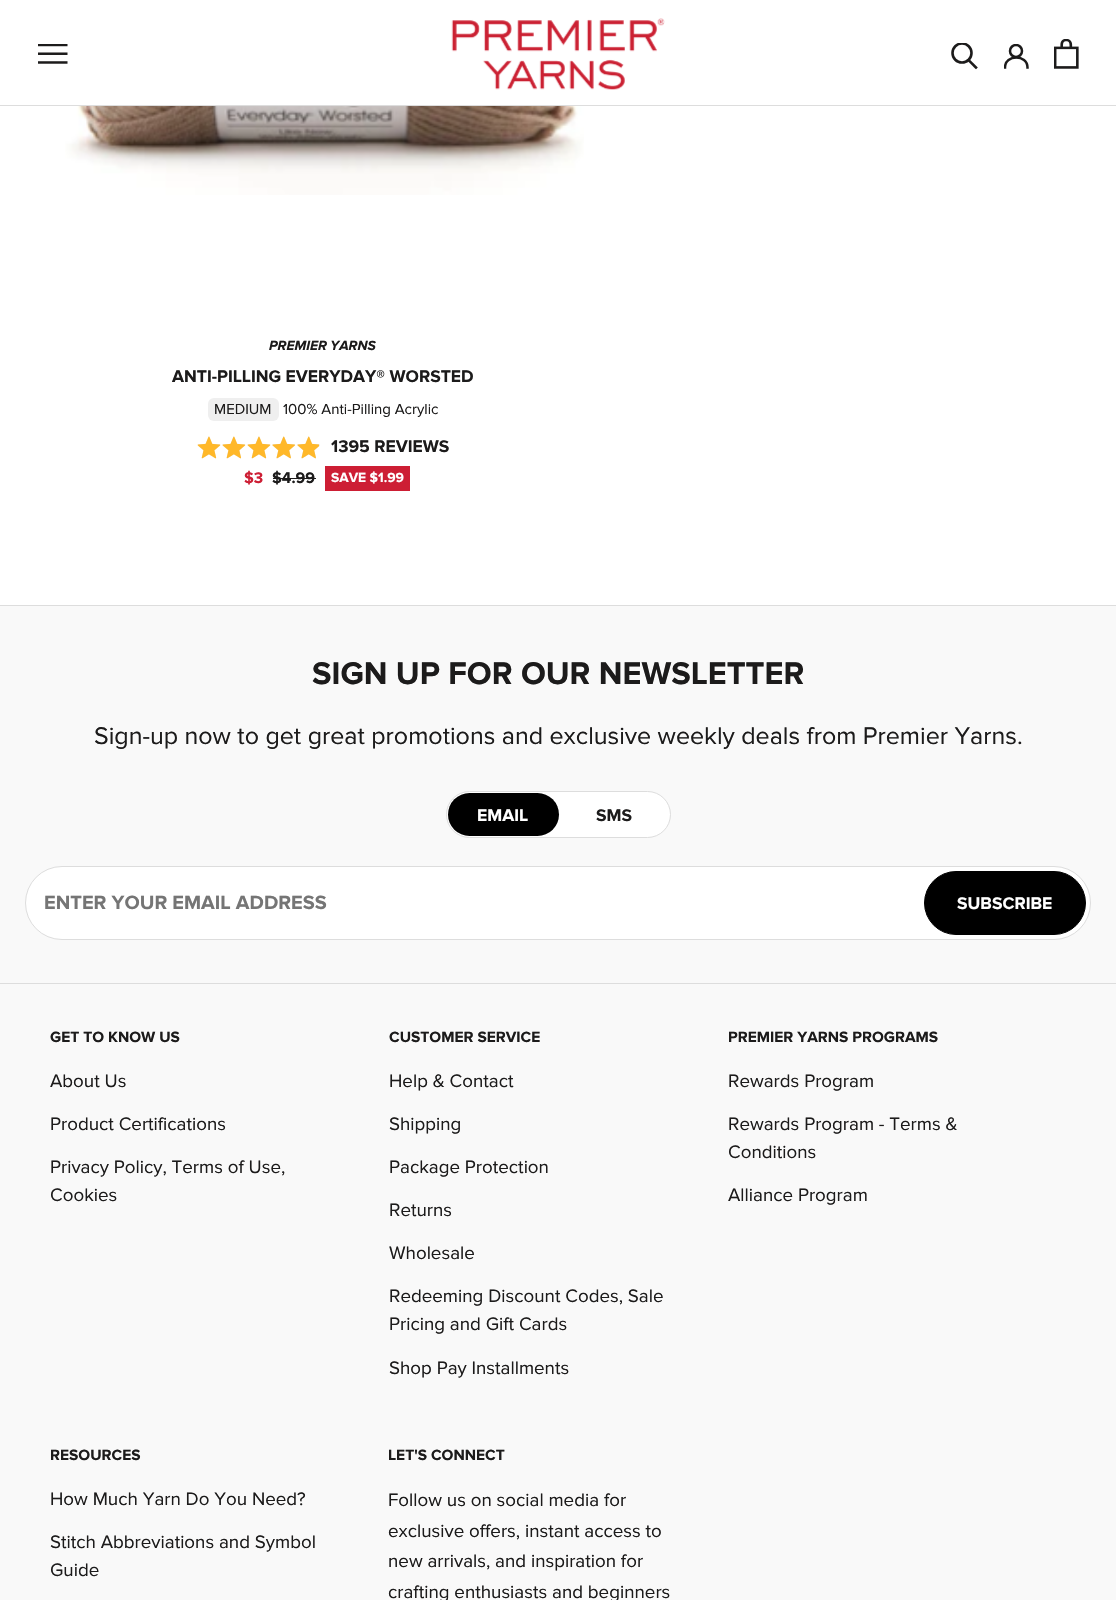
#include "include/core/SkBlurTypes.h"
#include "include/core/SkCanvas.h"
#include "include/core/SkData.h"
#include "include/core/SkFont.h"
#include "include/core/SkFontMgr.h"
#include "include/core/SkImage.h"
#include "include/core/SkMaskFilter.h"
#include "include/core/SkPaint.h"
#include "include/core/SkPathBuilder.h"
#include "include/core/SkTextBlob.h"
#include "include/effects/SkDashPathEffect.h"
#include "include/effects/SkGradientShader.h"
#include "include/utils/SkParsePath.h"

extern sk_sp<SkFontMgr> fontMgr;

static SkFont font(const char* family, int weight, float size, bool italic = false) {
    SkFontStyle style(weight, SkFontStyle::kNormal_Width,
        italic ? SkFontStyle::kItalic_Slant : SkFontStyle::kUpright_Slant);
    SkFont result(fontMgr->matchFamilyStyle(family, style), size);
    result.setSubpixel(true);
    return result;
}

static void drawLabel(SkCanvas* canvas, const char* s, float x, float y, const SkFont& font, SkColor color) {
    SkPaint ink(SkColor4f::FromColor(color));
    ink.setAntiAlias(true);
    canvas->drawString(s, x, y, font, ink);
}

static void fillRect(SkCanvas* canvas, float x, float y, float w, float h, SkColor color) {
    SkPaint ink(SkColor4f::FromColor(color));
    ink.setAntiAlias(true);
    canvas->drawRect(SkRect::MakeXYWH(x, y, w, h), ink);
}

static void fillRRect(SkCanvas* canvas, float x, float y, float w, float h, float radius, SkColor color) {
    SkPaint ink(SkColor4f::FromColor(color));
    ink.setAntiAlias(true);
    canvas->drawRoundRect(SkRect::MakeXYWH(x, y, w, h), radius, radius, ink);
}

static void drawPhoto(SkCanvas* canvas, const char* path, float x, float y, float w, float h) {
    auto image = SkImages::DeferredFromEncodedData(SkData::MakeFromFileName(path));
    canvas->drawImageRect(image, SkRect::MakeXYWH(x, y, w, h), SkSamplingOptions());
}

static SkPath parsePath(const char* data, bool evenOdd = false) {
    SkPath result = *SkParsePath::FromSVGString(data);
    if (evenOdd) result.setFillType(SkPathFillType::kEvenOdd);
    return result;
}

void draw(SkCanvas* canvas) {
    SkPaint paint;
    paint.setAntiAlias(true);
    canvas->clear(0xFFFFFFFF);
    fillRect(canvas, 0, 105, 1116, 1, 0xFFDDDDDD);
    drawPhoto(canvas, "assets/img1.png", 38, 44, 30, 20);
    drawPhoto(canvas, "assets/img2.png", 451, 18, 214, 72);
    paint.setStroke(true);
    paint.setStrokeWidth(2.6f);
    paint.setStrokeCap(SkPaint::kSquare_Cap);
    paint.setColor(0xFF1C1B1B);
    canvas->drawPath(parsePath("M976 67.5L968.5 60"), paint);
    canvas->save();
    canvas->clipRect(SkRect::MakeXYWH(951, 43, 28, 27));
    paint.setStrokeCap(SkPaint::kButt_Cap);
    canvas->drawCircle(962, 53, 9.5f, paint);
    canvas->restore();
    canvas->save();
    canvas->clipRect(SkRect::MakeXYWH(1004, 44, 25, 25));
    paint.setStrokeWidth(2.5f);
    paint.setStrokeCap(SkPaint::kSquare_Cap);
    canvas->drawPath(parsePath("M1005 67.5C1005 54 1027.5 54 1027.5 67.5"), paint);
    paint.setStrokeCap(SkPaint::kButt_Cap);
    canvas->drawCircle(1016, 51, 6, paint);
    canvas->restore();
    drawPhoto(canvas, "assets/img3.png", 1054, 39, 25, 30);
    drawPhoto(canvas, "assets/img4.png", 65, 106, 519, 89);
    SkFont font1 = font("Proxima Nova", 700, 13.75f, true);
    drawLabel(canvas, "PREMIER YARNS", 269, 350, font1, 0xFF1C1B1B);
    SkFont font2 = font("Proxima Nova", 700, 17.5f);
    drawLabel(canvas, "ANTI-PILLING EVERYDAY® WORSTED", 172, 382, font2, 0xFF1C1B1B);
    fillRRect(canvas, 208, 398, 71, 23, 6, 0xFFEFEFEF);
    SkFont font3 = font("Proxima Nova", 400, 15);
    drawLabel(canvas, "MEDIUM", 214, 414, font3, 0xFF1C1B1B);
    drawLabel(canvas, "100% Anti-Pilling Acrylic", 283, 414, font3, 0xFF1C1B1B);
    drawPhoto(canvas, "assets/img6.png", 198, 436, 122, 23);
    drawPhoto(canvas, "assets/img5.png", 197, 436, 122, 23);
    drawLabel(canvas, "1395 REVIEWS", 331, 452, font2, 0xFF1C1B1B);
    SkFont font4 = font("Proxima Nova", 700, 16);
    drawLabel(canvas, "$3", 244, 483, font4, 0xFFCD1E34);
    drawLabel(canvas, "$4.99", 272, 483, font4, 0xFF1C1B1B);
    fillRect(canvas, 273, 478, 43, 1, 0xFF1C1B1B);
    fillRect(canvas, 325, 466, 85, 25, 0xFFCD1E34);
    SkFont font5 = font("Proxima Nova", 700, 13.75f);
    drawLabel(canvas, "SAVE $1.99", 331, 482, font5, 0xFFFFFFFF);
    fillRect(canvas, 0, 606, 1116, 994, 0xFFF9F9F9);
    fillRect(canvas, 0, 605, 1116, 1, 0xFFDDDDDD);
    fillRect(canvas, 0, 983, 1116, 1, 0xFFDDDDDD);
    SkFont font6 = font("Proxima Nova", 700, 32.5f);
    drawLabel(canvas, "SIGN UP FOR OUR NEWSLETTER", 312, 684, font6, 0xFF1C1B1B);
    SkFont font7 = font("Proxima Nova", 400, 25);
    drawLabel(canvas, "Sign-up now to get great promotions and exclusive weekly deals from Premier Yarns.", 94, 744, font7, 0xFF1C1B1B);
    paint.setStroke(false);
    paint.setColor(0xFFFFFFFF);
    canvas->drawRoundRect(SkRect::MakeXYWH(446.5f, 791.5f, 224, 46), 23, 23, paint);
    paint.setStroke(true);
    paint.setStrokeWidth(1);
    paint.setColor(0xFFDDDDDD);
    canvas->drawRoundRect(SkRect::MakeXYWH(446.5f, 791.5f, 224, 46), 23, 23, paint);
    fillRRect(canvas, 448, 793, 111, 43, 21.5f, 0xFF000000);
    drawLabel(canvas, "EMAIL", 477, 821, font2, 0xFFFFFFFF);
    drawLabel(canvas, "SMS", 596, 821, font2, 0xFF1C1B1B);
    paint.setStroke(false);
    paint.setColor(0xFFFFFFFF);
    canvas->drawRoundRect(SkRect::MakeXYWH(25.5f, 866.5f, 1065, 73), 36.5f, 36.5f, paint);
    paint.setStroke(true);
    paint.setColor(0xFFDDDDDD);
    canvas->drawRoundRect(SkRect::MakeXYWH(25.5f, 866.5f, 1065, 73), 36.5f, 36.5f, paint);
    SkFont font8 = font("Proxima Nova", 700, 20);
    drawLabel(canvas, "ENTER YOUR EMAIL ADDRESS", 44, 909, font8, 0xFF757575);
    paint.setStroke(false);
    paint.setColor(0xFF000000);
    canvas->drawRoundRect(SkRect::MakeXYWH(924.5f, 871.5f, 161, 63), 31.5f, 31.5f, paint);
    paint.setStroke(true);
    canvas->drawRoundRect(SkRect::MakeXYWH(924.5f, 871.5f, 161, 63), 31.5f, 31.5f, paint);
    drawLabel(canvas, "SUBSCRIBE", 957, 909, font2, 0xFFFFFFFF);
    SkFont font9 = font("Proxima Nova", 700, 15.5f);
    drawLabel(canvas, "GET TO KNOW US", 50, 1042, font9, 0xFF1C1B1B);
    SkFont font10 = font("Proxima Nova", 400, 18.75f);
    drawLabel(canvas, "About Us", 50, 1087, font10, 0xFF1C1B1B);
    drawLabel(canvas, "Product Certifications", 50, 1130, font10, 0xFF1C1B1B);
    drawLabel(canvas, "Privacy Policy, Terms of Use,", 50, 1173, font10, 0xFF1C1B1B);
    drawLabel(canvas, "Cookies", 50, 1201, font10, 0xFF1C1B1B);
    drawLabel(canvas, "CUSTOMER SERVICE", 389, 1042, font9, 0xFF1C1B1B);
    drawLabel(canvas, "Help & Contact", 389, 1087, font10, 0xFF1C1B1B);
    drawLabel(canvas, "Shipping", 389, 1130, font10, 0xFF1C1B1B);
    drawLabel(canvas, "Package Protection", 389, 1173, font10, 0xFF1C1B1B);
    drawLabel(canvas, "Returns", 389, 1216, font10, 0xFF1C1B1B);
    drawLabel(canvas, "Wholesale", 389, 1259, font10, 0xFF1C1B1B);
    drawLabel(canvas, "Redeeming Discount Codes, Sale", 389, 1302, font10, 0xFF1C1B1B);
    drawLabel(canvas, "Pricing and Gift Cards", 389, 1330, font10, 0xFF1C1B1B);
    drawLabel(canvas, "Shop Pay Installments", 389, 1374, font10, 0xFF1C1B1B);
    drawLabel(canvas, "PREMIER YARNS PROGRAMS", 728, 1042, font9, 0xFF1C1B1B);
    drawLabel(canvas, "Rewards Program", 728, 1087, font10, 0xFF1C1B1B);
    drawLabel(canvas, "Rewards Program - Terms &", 728, 1130, font10, 0xFF1C1B1B);
    drawLabel(canvas, "Conditions", 728, 1158, font10, 0xFF1C1B1B);
    drawLabel(canvas, "Alliance Program", 728, 1201, font10, 0xFF1C1B1B);
    drawLabel(canvas, "RESOURCES", 50, 1460, font9, 0xFF1C1B1B);
    drawLabel(canvas, "How Much Yarn Do You Need?", 50, 1505, font10, 0xFF1C1B1B);
    drawLabel(canvas, "Stitch Abbreviations and Symbol", 50, 1548, font10, 0xFF1C1B1B);
    drawLabel(canvas, "Guide", 50, 1576, font10, 0xFF1C1B1B);
    drawLabel(canvas, "LET'S CONNECT", 388, 1460, font9, 0xFF1C1B1B);
    drawLabel(canvas, "Follow us on social media for", 388, 1506, font10, 0xFF1C1B1B);
    drawLabel(canvas, "exclusive offers, instant access to", 388, 1537, font10, 0xFF1C1B1B);
    drawLabel(canvas, "new arrivals, and inspiration for", 388, 1567, font10, 0xFF1C1B1B);
    drawLabel(canvas, "crafting enthusiasts and beginners", 388, 1598, font10, 0xFF1C1B1B);
}
